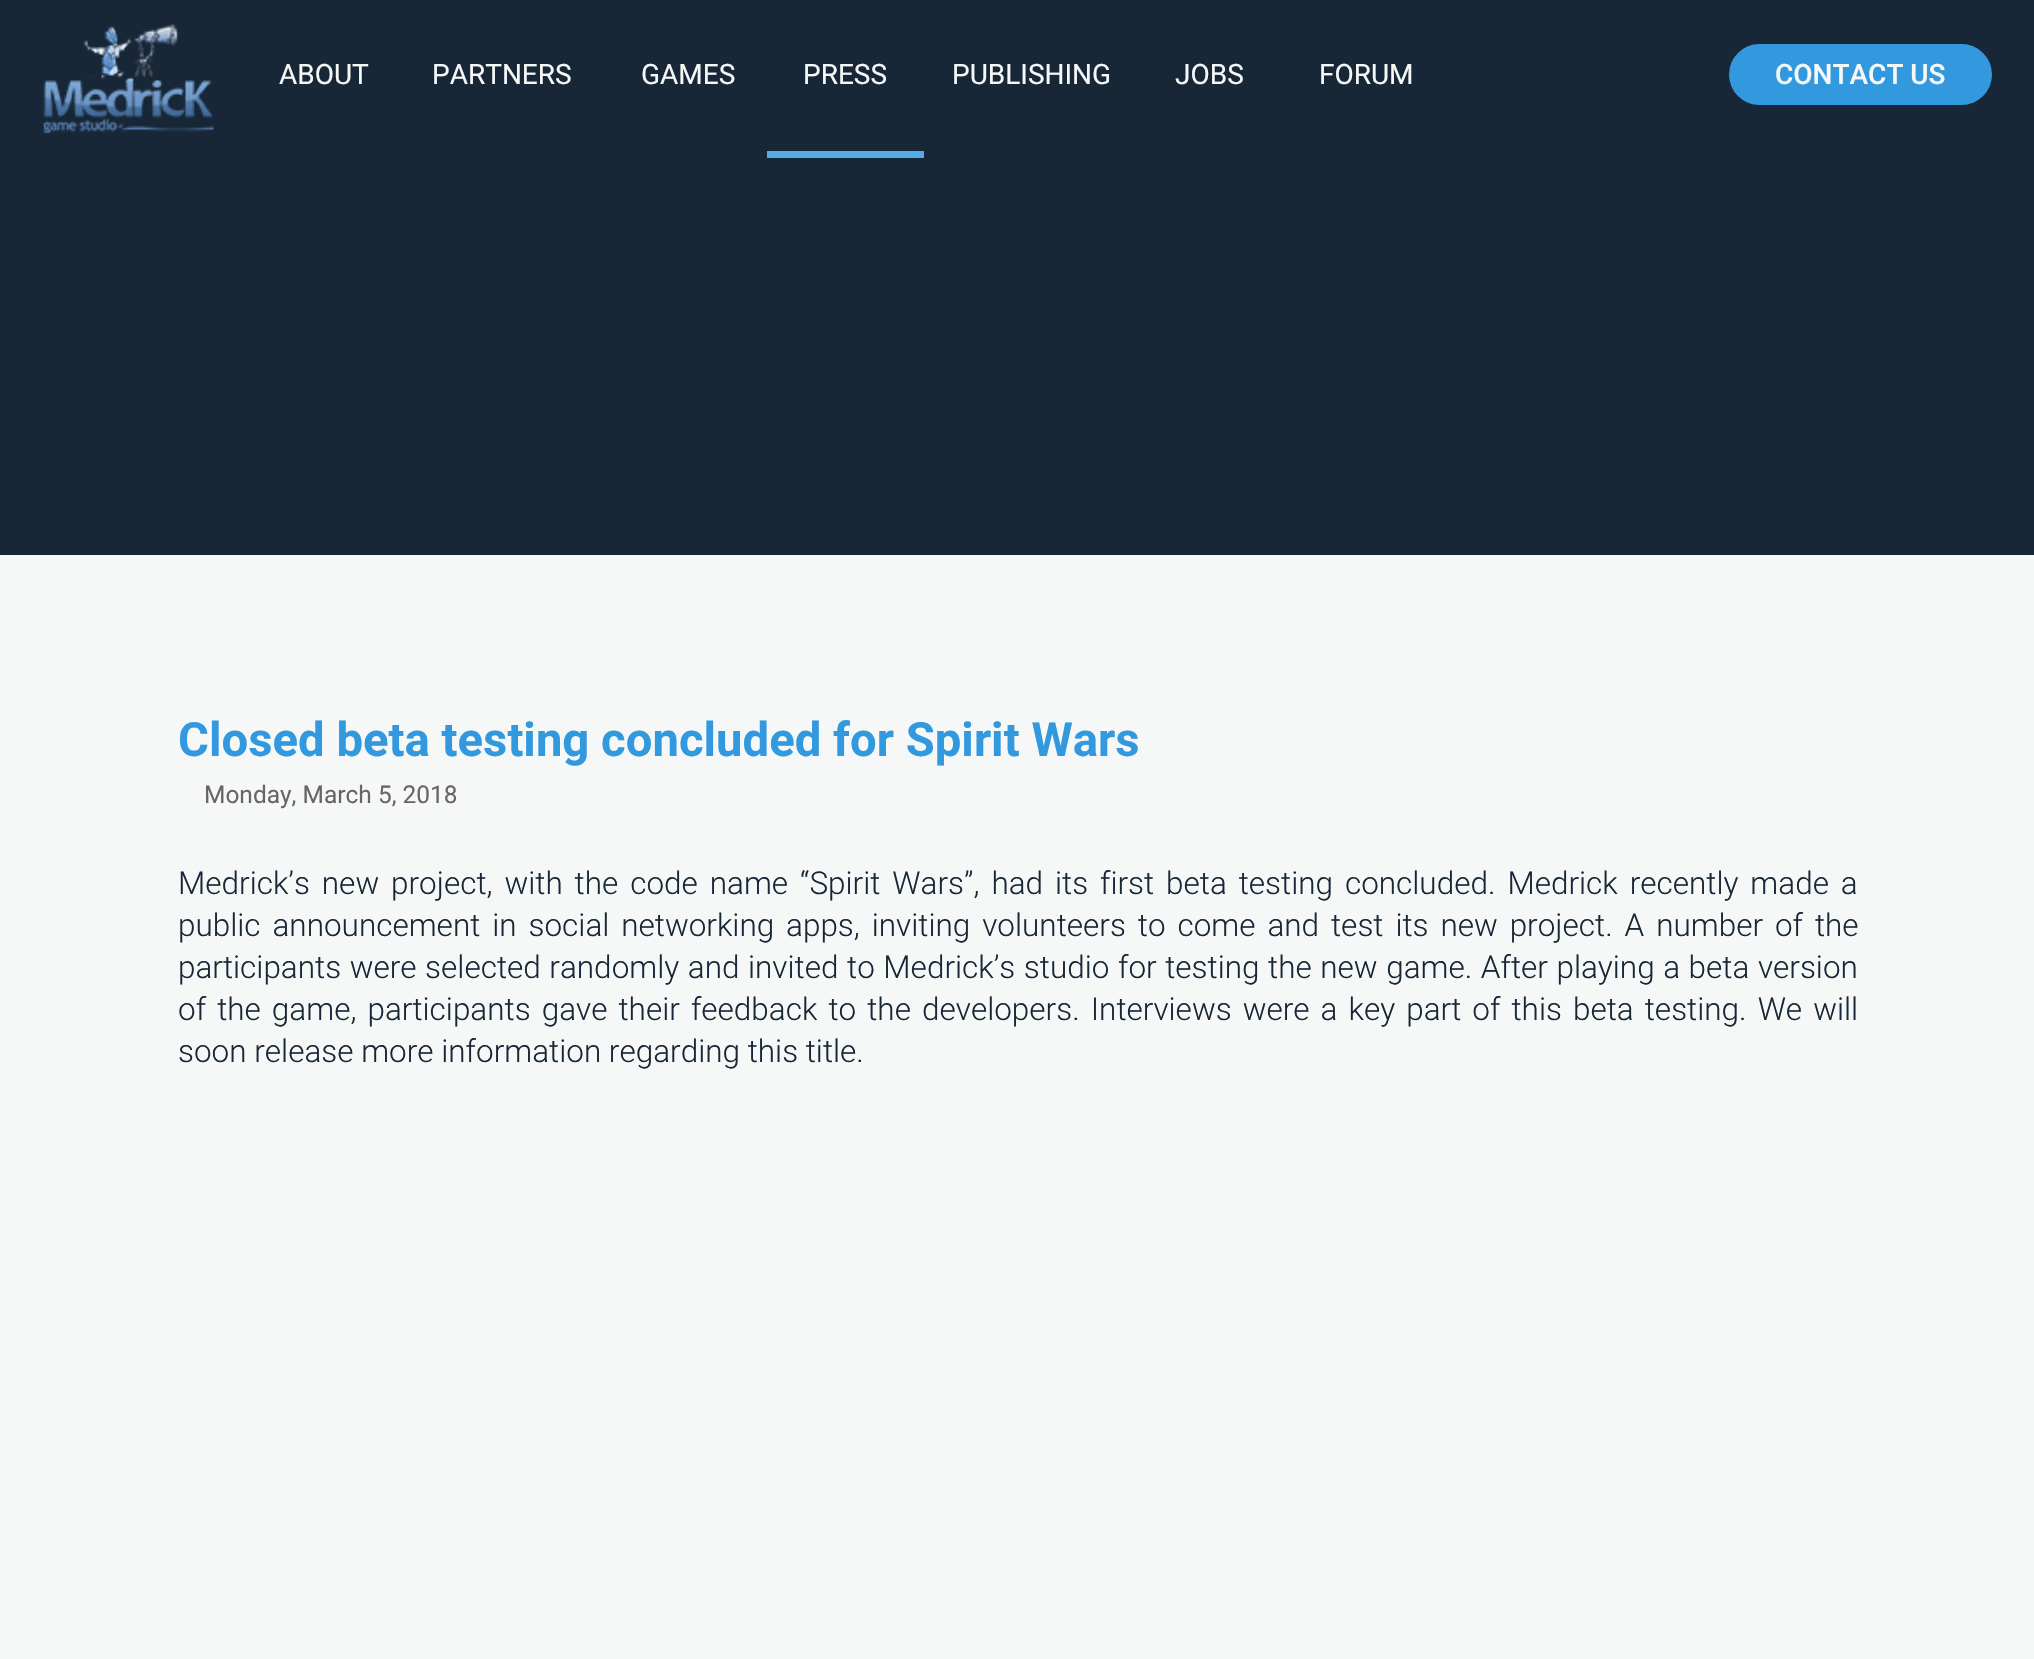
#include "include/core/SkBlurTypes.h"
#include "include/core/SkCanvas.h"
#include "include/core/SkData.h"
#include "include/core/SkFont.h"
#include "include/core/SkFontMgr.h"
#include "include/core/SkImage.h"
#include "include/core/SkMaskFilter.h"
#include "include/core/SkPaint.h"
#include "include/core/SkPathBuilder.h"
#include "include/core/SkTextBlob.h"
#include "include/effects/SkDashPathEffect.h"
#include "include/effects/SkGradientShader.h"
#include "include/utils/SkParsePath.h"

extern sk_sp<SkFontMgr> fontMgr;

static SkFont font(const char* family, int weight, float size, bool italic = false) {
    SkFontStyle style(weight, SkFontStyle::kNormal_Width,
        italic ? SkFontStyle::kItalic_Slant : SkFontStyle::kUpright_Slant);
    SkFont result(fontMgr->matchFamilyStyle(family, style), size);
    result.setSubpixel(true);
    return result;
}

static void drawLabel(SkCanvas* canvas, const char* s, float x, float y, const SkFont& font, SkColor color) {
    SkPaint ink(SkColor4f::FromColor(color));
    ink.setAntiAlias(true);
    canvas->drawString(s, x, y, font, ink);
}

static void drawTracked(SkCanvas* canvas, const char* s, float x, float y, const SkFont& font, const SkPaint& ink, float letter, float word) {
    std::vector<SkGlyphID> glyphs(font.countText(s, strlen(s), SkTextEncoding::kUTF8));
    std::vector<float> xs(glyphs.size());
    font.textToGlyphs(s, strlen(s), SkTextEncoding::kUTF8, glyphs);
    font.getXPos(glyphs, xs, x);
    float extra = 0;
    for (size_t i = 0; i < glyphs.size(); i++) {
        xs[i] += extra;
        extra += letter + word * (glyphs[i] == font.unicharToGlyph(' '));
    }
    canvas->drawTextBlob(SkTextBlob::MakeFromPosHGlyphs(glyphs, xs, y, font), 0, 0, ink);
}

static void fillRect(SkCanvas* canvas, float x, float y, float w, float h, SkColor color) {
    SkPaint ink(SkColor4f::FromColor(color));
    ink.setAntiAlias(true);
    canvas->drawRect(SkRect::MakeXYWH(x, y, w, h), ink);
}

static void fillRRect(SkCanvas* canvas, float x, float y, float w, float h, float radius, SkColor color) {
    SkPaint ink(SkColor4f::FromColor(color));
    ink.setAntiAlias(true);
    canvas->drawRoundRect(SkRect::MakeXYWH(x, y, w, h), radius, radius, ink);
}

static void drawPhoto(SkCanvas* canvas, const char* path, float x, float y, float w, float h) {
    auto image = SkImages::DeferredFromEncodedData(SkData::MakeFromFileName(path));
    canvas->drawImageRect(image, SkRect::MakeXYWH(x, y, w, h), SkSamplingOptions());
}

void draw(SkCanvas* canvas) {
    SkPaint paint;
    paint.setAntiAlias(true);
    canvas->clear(0xFFF6F8F7);
    fillRect(canvas, 0, 0, 2034, 555, 0xFF182737);
    drawPhoto(canvas, "assets/img1.png", 43, 24, 171, 109);
    SkFont font1 = font("Roboto", 400, 28);
    drawLabel(canvas, "ABOUT", 279, 84, font1, 0xFFF6F8F7);
    drawLabel(canvas, "PARTNERS", 432, 84, font1, 0xFFF6F8F7);
    drawLabel(canvas, "GAMES", 641, 84, font1, 0xFFF6F8F7);
    fillRect(canvas, 767, 151, 157, 7, 0xFF54ACE7);
    drawLabel(canvas, "PRESS", 803, 84, font1, 0xFFF6F8F7);
    drawLabel(canvas, "PUBLISHING", 952, 84, font1, 0xFFF6F8F7);
    drawLabel(canvas, "JOBS", 1175, 84, font1, 0xFFF6F8F7);
    drawLabel(canvas, "FORUM", 1319, 84, font1, 0xFFF6F8F7);
    fillRRect(canvas, 1729, 44, 263, 61, 30.5f, 0xFF3399DE);
    SkFont font2 = font("Roboto", 500, 28);
    drawLabel(canvas, "CONTACT US", 1775, 84, font2, 0xFFF6F8F7);
    SkFont font3 = font("Roboto", 700, 47.25f);
    drawLabel(canvas, "Closed beta testing concluded for Spirit Wars", 178, 756, font3, 0xFF3399DE);
    SkFont font4 = font("Roboto", 400, 24.5f);
    drawLabel(canvas, "Monday, March 5, 2018", 204, 803, font4, 0xFF666666);
    SkFont font5 = font("Roboto", 300, 31.5f);
    paint.setColor(0xFF182737);
    drawTracked(canvas, "Medrick’s new project, with the code name “Spirit Wars”, had its first beta testing concluded. Medrick recently made a", 178, 894, font5, paint, 0, 4.25f);
    drawTracked(canvas, "public announcement in social networking apps, inviting volunteers to come and test its new project. A number of the", 178, 936, font5, paint, 0, 4.25f);
    drawTracked(canvas, "participants were selected randomly and invited to Medrick’s studio for testing the new game. After playing a beta version", 178, 978, font5, paint, 0, 0.9f);
    drawTracked(canvas, "of the game, participants gave their feedback to the developers. Interviews were a key part of this beta testing. We will", 178, 1020, font5, paint, 0, 3.4f);
    drawLabel(canvas, "soon release more information regarding this title.", 178, 1062, font5, 0xFF182737);
}
